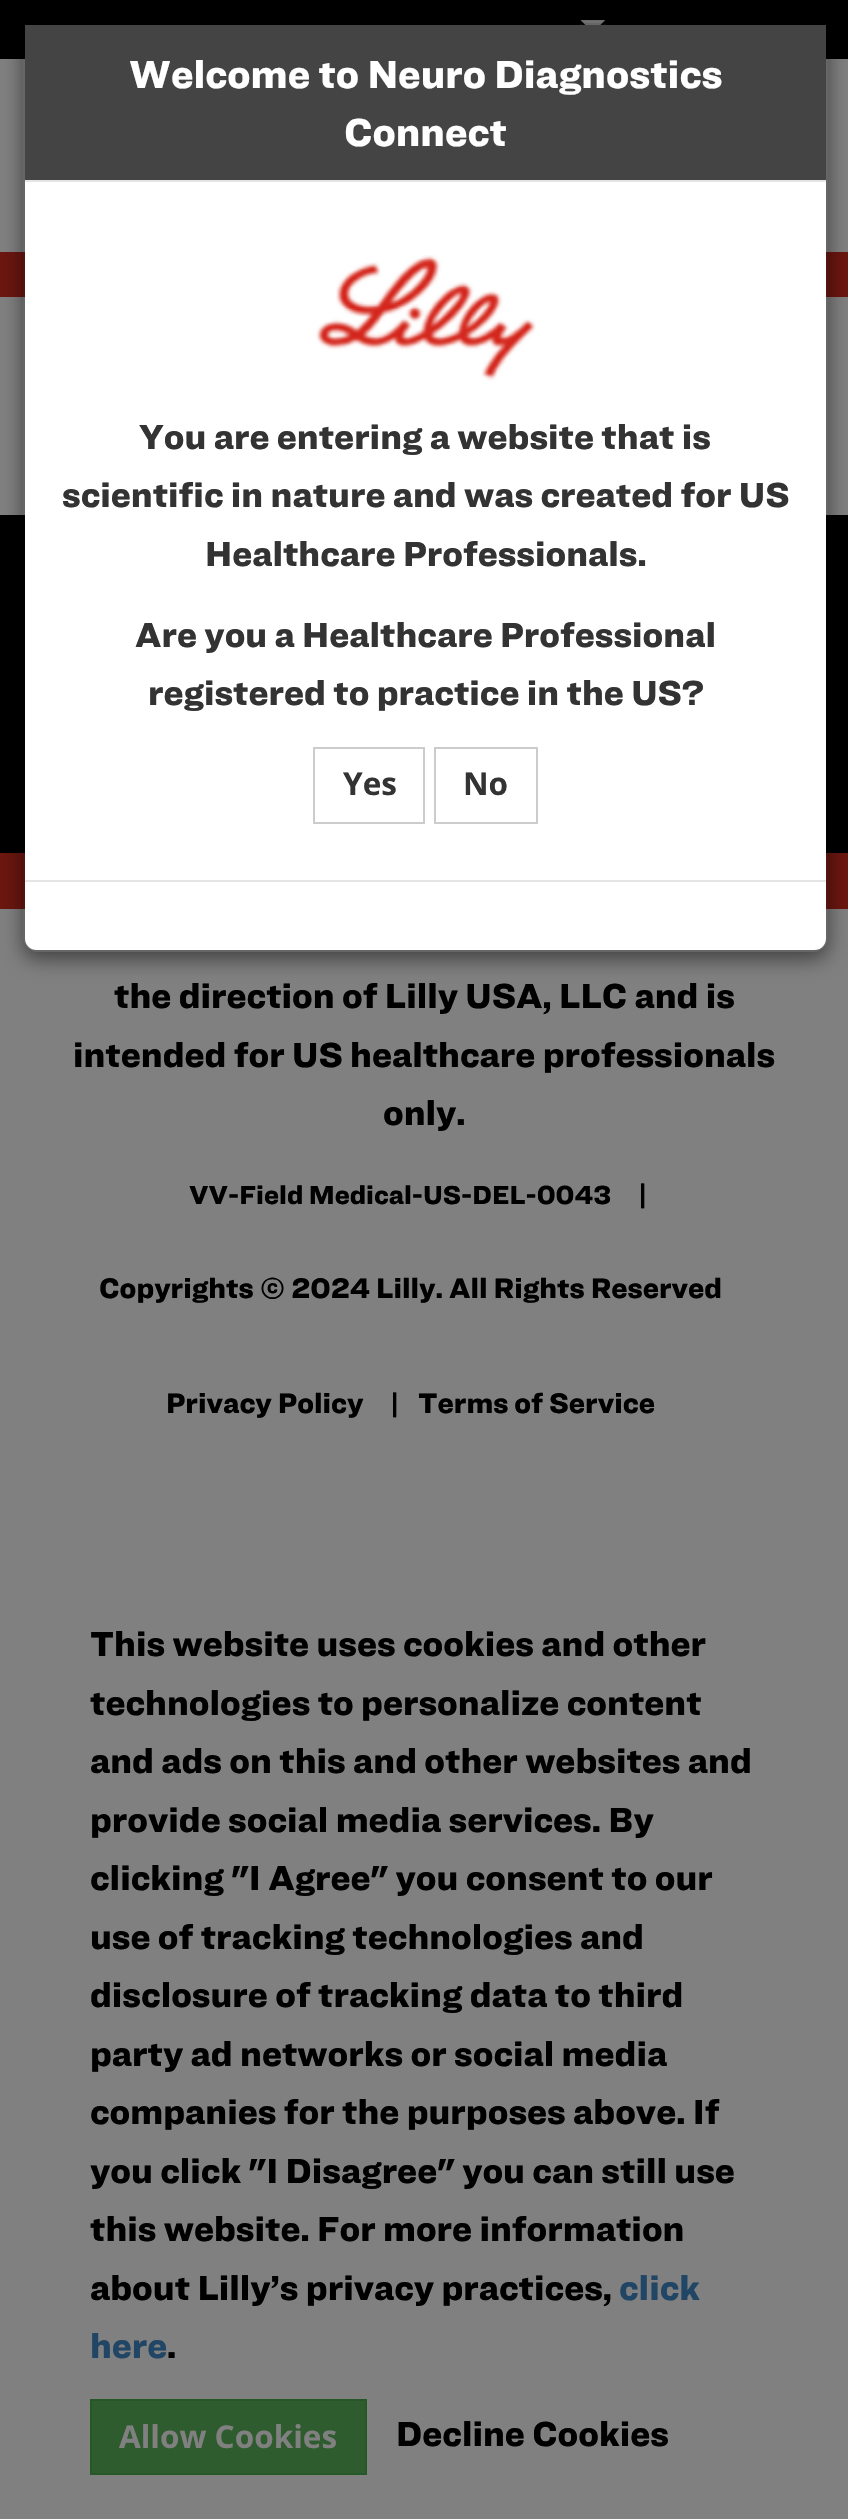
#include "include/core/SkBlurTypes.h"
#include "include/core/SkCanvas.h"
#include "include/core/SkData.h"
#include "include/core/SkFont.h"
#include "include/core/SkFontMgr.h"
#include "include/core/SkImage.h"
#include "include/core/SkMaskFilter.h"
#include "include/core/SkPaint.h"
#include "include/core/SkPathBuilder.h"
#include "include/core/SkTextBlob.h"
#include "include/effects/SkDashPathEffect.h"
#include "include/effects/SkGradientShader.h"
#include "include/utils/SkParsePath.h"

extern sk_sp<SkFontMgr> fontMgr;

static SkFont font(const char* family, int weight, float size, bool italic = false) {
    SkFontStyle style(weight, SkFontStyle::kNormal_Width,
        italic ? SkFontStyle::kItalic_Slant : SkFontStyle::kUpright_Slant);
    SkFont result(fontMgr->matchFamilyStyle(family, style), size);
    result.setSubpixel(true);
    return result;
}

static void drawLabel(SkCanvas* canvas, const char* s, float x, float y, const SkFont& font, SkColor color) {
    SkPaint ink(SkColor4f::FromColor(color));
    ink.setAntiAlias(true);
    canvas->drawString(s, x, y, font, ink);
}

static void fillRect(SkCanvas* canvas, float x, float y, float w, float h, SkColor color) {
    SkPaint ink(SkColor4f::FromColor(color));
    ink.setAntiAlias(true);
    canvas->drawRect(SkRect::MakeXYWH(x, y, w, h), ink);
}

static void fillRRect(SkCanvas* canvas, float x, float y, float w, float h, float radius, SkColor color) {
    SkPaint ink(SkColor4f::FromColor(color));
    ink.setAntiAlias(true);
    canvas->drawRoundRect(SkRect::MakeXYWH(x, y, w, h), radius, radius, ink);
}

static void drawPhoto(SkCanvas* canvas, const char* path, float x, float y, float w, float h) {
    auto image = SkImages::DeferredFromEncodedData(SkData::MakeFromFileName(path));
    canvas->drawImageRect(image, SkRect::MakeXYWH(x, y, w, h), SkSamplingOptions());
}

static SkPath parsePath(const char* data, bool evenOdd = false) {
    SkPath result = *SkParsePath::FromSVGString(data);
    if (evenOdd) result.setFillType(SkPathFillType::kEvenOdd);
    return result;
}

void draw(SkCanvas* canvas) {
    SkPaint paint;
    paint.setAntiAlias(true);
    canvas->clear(0xFF808080);
    fillRect(canvas, 0, 0, 848, 59, 0xFF000000);
    drawPhoto(canvas, "assets/img1.png", 580, 20, 26, 5);
    fillRect(canvas, 0, 252, 848, 657, 0xFF6B160F);
    fillRect(canvas, 0, 515, 848, 338, 0xFF000000);
    fillRect(canvas, 0, 297, 848, 218, 0xFF808080);
    canvas->save();
    canvas->clipPath(parsePath("M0 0H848V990H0ZM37 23H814C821.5 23 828 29.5 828 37V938C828 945.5 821.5 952 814 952H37C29.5 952 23 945.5 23 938V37C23 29.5 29.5 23 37 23Z", true), true);
    paint.setColor(0x80000000);
    paint.setMaskFilter(SkMaskFilter::MakeBlur(kNormal_SkBlurStyle, 10));
    canvas->drawRoundRect(SkRect::MakeXYWH(23, 29, 805, 930), 14, 14, paint);
    paint.setMaskFilter(nullptr);
    canvas->restore();
    fillRRect(canvas, 25, 25, 801, 925, 11, 0xFFFFFFFF);
    paint.setStroke(true);
    paint.setStrokeWidth(2);
    paint.setColor(0x33000000);
    canvas->drawRoundRect(SkRect::MakeXYWH(24, 24, 803, 927), 13, 13, paint);
    fillRect(canvas, 25, 25, 801, 155, 0xFF444444);
    fillRect(canvas, 25, 180, 801, 2, 0xFFE5E5E5);
    SkFont font1 = font("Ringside", 900, 40.5f);
    drawLabel(canvas, "Welcome to Neuro Diagnostics", 129, 88, font1, 0xFFFFFFFF);
    drawLabel(canvas, "Connect", 344, 146, font1, 0xFFFFFFFF);
    drawPhoto(canvas, "assets/img2.png", 316, 255, 220, 126);
    SkFont font2 = font("Ringside", 900, 36);
    drawLabel(canvas, "You are entering a website that is", 139, 449, font2, 0xFF333333);
    drawLabel(canvas, "scientific in nature and was created for US", 62, 507, font2, 0xFF333333);
    drawLabel(canvas, "Healthcare Professionals.", 205, 566, font2, 0xFF333333);
    drawLabel(canvas, "Are you a Healthcare Professional", 135, 647, font2, 0xFF333333);
    drawLabel(canvas, "registered to practice in the US?", 148, 705, font2, 0xFF333333);
    paint.setColor(0xFFCCCCCC);
    canvas->drawRect(SkRect::MakeXYWH(314, 748, 110, 75), paint);
    SkFont font3 = font("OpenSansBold", 700, 31.5f);
    drawLabel(canvas, "Yes", 343, 795, font3, 0xFF333333);
    canvas->drawRect(SkRect::MakeXYWH(435, 748, 102, 75), paint);
    drawLabel(canvas, "No", 463, 795, font3, 0xFF333333);
    fillRect(canvas, 25, 880, 801, 2, 0xFFE5E5E5);
    drawLabel(canvas, "the direction of Lilly USA, LLC and is", 114, 1008, font2, 0xFF000000);
    drawLabel(canvas, "intended for US healthcare professionals", 73, 1067, font2, 0xFF000000);
    drawLabel(canvas, "only.", 383, 1125, font2, 0xFF000000);
    SkFont font4 = font("Ringside", 900, 27);
    drawLabel(canvas, "VV-Field Medical-US-DEL-0043", 189, 1204, font4, 0xFF000000);
    drawLabel(canvas, "|", 638, 1204, font4, 0xFF000000);
    SkFont font5 = font("Ringside", 900, 29.25f);
    drawLabel(canvas, "Copyrights © 2024 Lilly. All Rights Reserved", 99, 1298, font5, 0xFF000000);
    drawLabel(canvas, "Privacy Policy", 166, 1413, font5, 0xFF000000);
    drawLabel(canvas, "|", 390, 1413, font4, 0xFF000000);
    drawLabel(canvas, "Terms of Service", 418, 1413, font5, 0xFF000000);
    drawLabel(canvas, "This website uses cookies and other", 90, 1656, font2, 0xFF000000);
    drawLabel(canvas, "technologies to personalize content", 90, 1715, font2, 0xFF000000);
    drawLabel(canvas, "and ads on this and other websites and", 90, 1773, font2, 0xFF000000);
    drawLabel(canvas, "provide social media services. By", 90, 1832, font2, 0xFF000000);
    drawLabel(canvas, "clicking \"I Agree\" you consent to our", 90, 1890, font2, 0xFF000000);
    drawLabel(canvas, "use of tracking technologies and", 90, 1949, font2, 0xFF000000);
    drawLabel(canvas, "disclosure of tracking data to third", 90, 2007, font2, 0xFF000000);
    drawLabel(canvas, "party ad networks or social media", 90, 2066, font2, 0xFF000000);
    drawLabel(canvas, "companies for the purposes above. If", 90, 2124, font2, 0xFF000000);
    drawLabel(canvas, "you click \"I Disagree\" you can still use", 90, 2183, font2, 0xFF000000);
    drawLabel(canvas, "this website. For more information", 90, 2241, font2, 0xFF000000);
    drawLabel(canvas, "about Lilly’s privacy practices,", 90, 2300, font2, 0xFF000000);
    drawLabel(canvas, "click", 619, 2300, font2, 0xFF214665);
    drawLabel(canvas, "here", 90, 2358, font2, 0xFF214665);
    drawLabel(canvas, ".", 167, 2358, font2, 0xFF000000);
    paint.setStroke(false);
    paint.setColor(0xFF2E5C2E);
    canvas->drawRect(SkRect::MakeXYWH(91, 2400, 275, 74), paint);
    paint.setStroke(true);
    paint.setColor(0xFF265726);
    canvas->drawRect(SkRect::MakeXYWH(91, 2400, 275, 74), paint);
    drawLabel(canvas, "Allow Cookies", 119, 2448, font3, 0xFF808080);
    drawLabel(canvas, "Decline Cookies", 396, 2446, font2, 0xFF000000);
}
